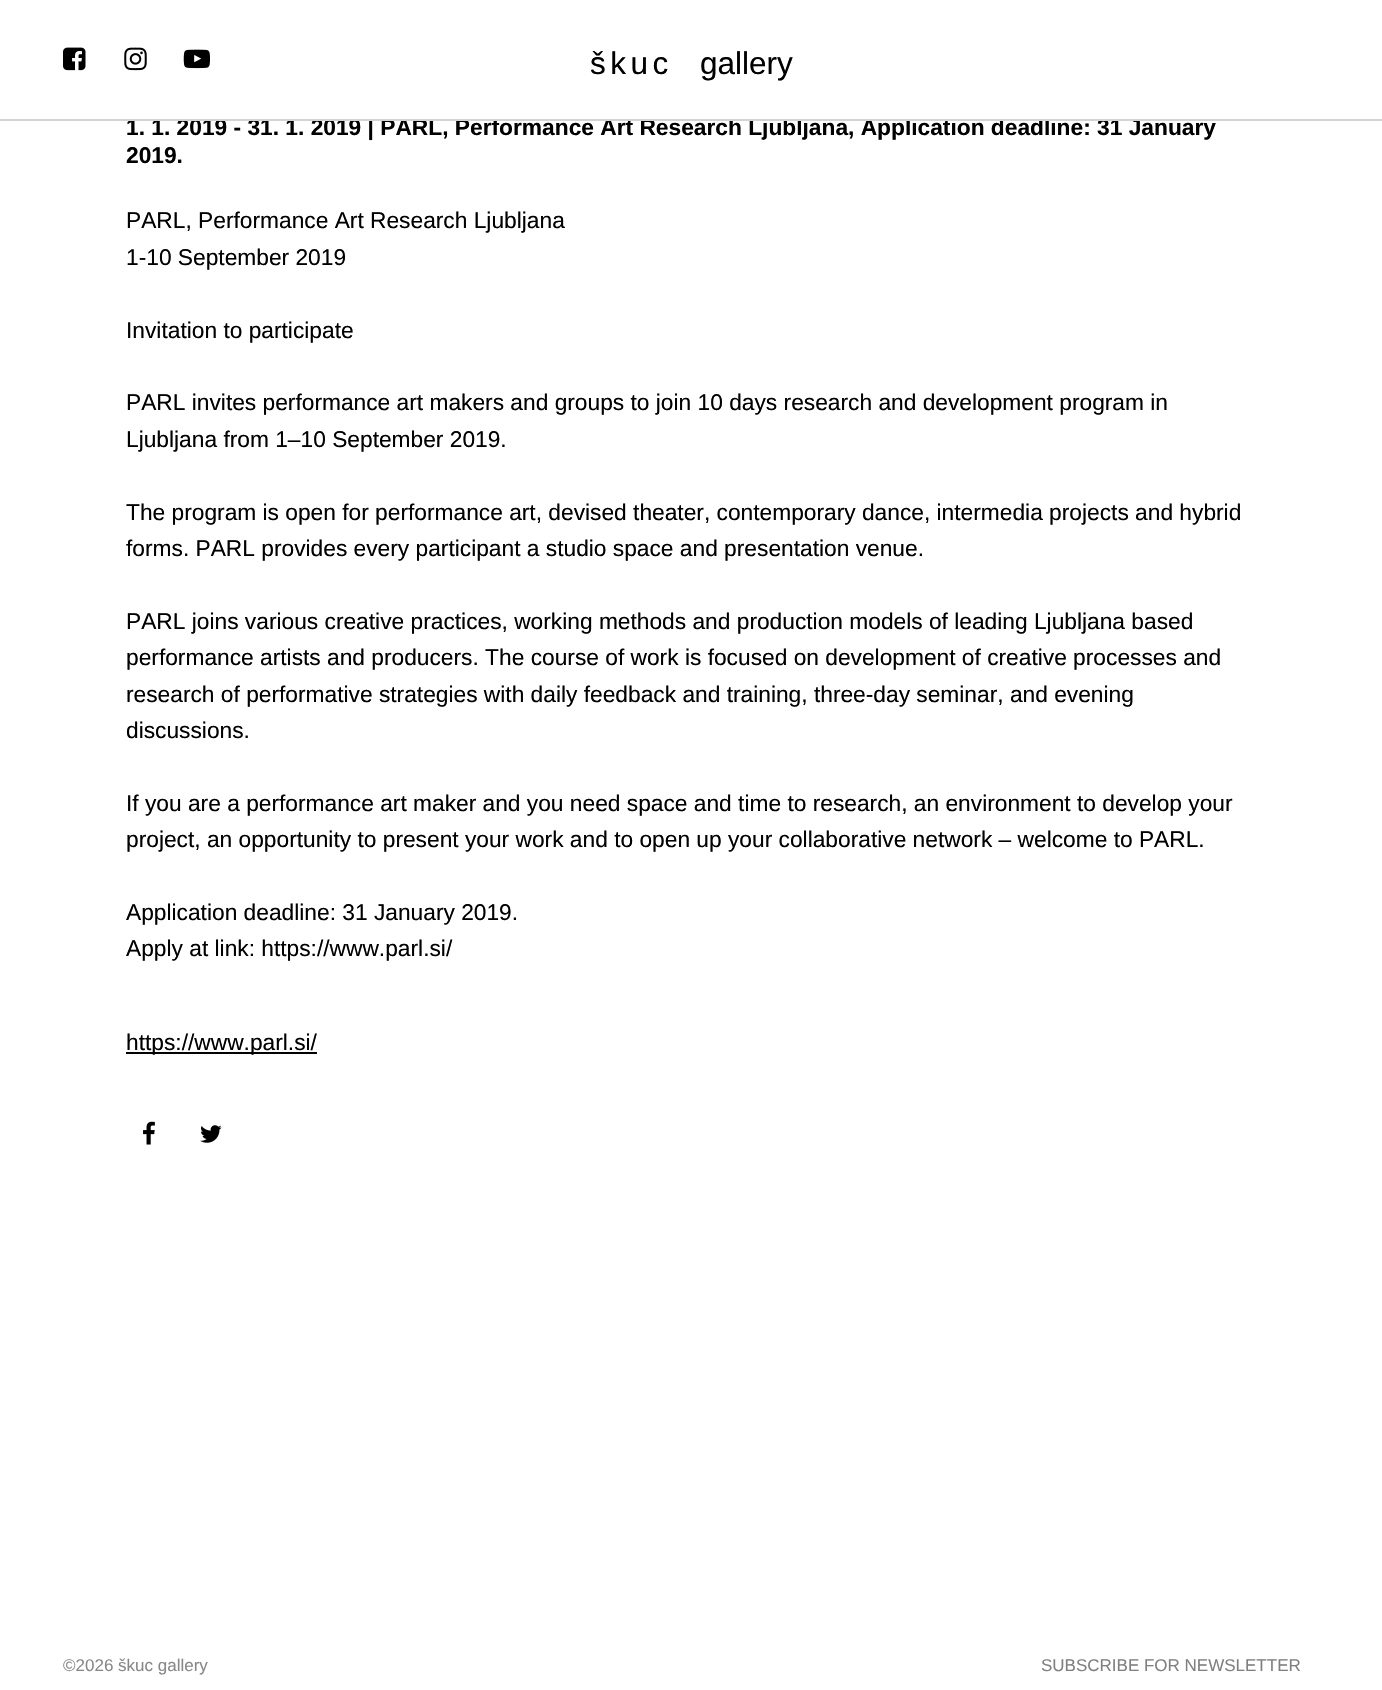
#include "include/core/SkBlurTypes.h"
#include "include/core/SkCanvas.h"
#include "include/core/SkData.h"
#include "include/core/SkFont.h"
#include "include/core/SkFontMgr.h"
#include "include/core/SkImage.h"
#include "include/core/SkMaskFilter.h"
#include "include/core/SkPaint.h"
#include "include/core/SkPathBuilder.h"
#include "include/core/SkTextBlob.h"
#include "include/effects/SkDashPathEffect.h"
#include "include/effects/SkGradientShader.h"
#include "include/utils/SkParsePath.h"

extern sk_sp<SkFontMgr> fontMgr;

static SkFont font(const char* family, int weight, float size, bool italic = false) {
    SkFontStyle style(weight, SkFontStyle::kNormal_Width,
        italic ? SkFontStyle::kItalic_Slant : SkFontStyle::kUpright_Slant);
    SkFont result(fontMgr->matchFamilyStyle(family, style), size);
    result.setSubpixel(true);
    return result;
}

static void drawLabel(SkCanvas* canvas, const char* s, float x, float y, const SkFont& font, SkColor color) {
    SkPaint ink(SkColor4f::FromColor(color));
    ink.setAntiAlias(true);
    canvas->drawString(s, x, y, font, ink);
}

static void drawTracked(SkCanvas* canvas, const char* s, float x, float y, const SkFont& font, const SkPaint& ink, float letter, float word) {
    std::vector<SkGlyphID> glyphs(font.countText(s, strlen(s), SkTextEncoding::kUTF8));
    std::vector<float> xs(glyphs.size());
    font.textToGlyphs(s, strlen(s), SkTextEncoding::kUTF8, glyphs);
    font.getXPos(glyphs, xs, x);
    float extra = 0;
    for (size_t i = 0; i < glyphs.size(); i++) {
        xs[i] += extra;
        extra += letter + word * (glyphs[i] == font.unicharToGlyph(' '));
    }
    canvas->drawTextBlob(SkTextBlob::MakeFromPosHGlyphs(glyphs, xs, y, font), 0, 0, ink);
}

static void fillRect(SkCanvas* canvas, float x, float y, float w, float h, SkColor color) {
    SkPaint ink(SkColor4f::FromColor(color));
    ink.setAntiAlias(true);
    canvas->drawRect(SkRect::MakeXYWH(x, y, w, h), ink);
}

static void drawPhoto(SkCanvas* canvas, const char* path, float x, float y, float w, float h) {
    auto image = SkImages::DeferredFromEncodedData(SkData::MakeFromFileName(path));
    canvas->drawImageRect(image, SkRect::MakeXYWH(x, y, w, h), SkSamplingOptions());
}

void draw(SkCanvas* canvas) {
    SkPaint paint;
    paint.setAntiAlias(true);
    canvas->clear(0xFFFFFFFF);
    SkFont font1 = font("Liberation Sans", 700, 22.75f);
    drawLabel(canvas, "1. 1. 2019 - 31. 1. 2019 | PARL, Performance Art Research Ljubljana, Application deadline: 31 January", 126, 135, font1, 0xFF000000);
    fillRect(canvas, 369, 118, 686, 1, 0xFFFFFFFF);
    fillRect(canvas, 0, 119, 1382, 2, 0xFFD3D3D3);
    drawPhoto(canvas, "assets/img1.png", 63, 47, 23, 24);
    drawPhoto(canvas, "assets/img2.png", 124, 47, 23, 24);
    drawPhoto(canvas, "assets/img3.png", 183, 49, 27, 20);
    SkFont font2 = font("Liberation Sans", 400, 31.5f);
    paint.setColor(0xFF000000);
    drawTracked(canvas, "škuc", 590, 74, font2, paint, 4.5f, 0);
    drawLabel(canvas, "gallery", 700, 74, font2, 0xFF000000);
    drawLabel(canvas, "2019.", 126, 163, font1, 0xFF000000);
    SkFont font3 = font("Liberation Sans", 400, 22.75f);
    drawLabel(canvas, "PARL, Performance Art Research Ljubljana", 126, 228, font3, 0xFF000000);
    drawLabel(canvas, "1-10 September 2019", 126, 265, font3, 0xFF000000);
    drawLabel(canvas, "Invitation to participate", 126, 338, font3, 0xFF000000);
    drawLabel(canvas, "PARL invites performance art makers and groups to join 10 days research and development program in", 126, 410, font3, 0xFF000000);
    drawLabel(canvas, "Ljubljana from 1–10 September 2019.", 126, 447, font3, 0xFF000000);
    drawLabel(canvas, "The program is open for performance art, devised theater, contemporary dance, intermedia projects and hybrid", 126, 520, font3, 0xFF000000);
    drawLabel(canvas, "forms. PARL provides every participant a studio space and presentation venue.", 126, 556, font3, 0xFF000000);
    drawLabel(canvas, "PARL joins various creative practices, working methods and production models of leading Ljubljana based", 126, 629, font3, 0xFF000000);
    drawLabel(canvas, "performance artists and producers. The course of work is focused on development of creative processes and", 126, 665, font3, 0xFF000000);
    drawLabel(canvas, "research of performative strategies with daily feedback and training, three-day seminar, and evening", 126, 702, font3, 0xFF000000);
    drawLabel(canvas, "discussions.", 126, 738, font3, 0xFF000000);
    drawLabel(canvas, "If you are a performance art maker and you need space and time to research, an environment to develop your", 126, 811, font3, 0xFF000000);
    drawLabel(canvas, "project, an opportunity to present your work and to open up your collaborative network – welcome to PARL.", 126, 847, font3, 0xFF000000);
    drawLabel(canvas, "Application deadline: 31 January 2019.", 126, 920, font3, 0xFF000000);
    drawLabel(canvas, "Apply at link: https://www.parl.si/", 126, 956, font3, 0xFF000000);
    fillRect(canvas, 126, 1052, 191, 2, 0xFF000000);
    drawLabel(canvas, "https://www.parl.si/", 126, 1050, font3, 0xFF000000);
    drawPhoto(canvas, "assets/img4.png", 143, 1121, 12, 24);
    drawPhoto(canvas, "assets/img5.png", 200, 1125, 22, 18);
    SkFont font4 = font("Liberation Sans", 400, 17);
    drawLabel(canvas, "©2026 škuc gallery", 63, 1671, font4, 0xFF888888);
    drawLabel(canvas, "SUBSCRIBE FOR NEWSLETTER", 1041, 1671, font4, 0xFF808080);
}
